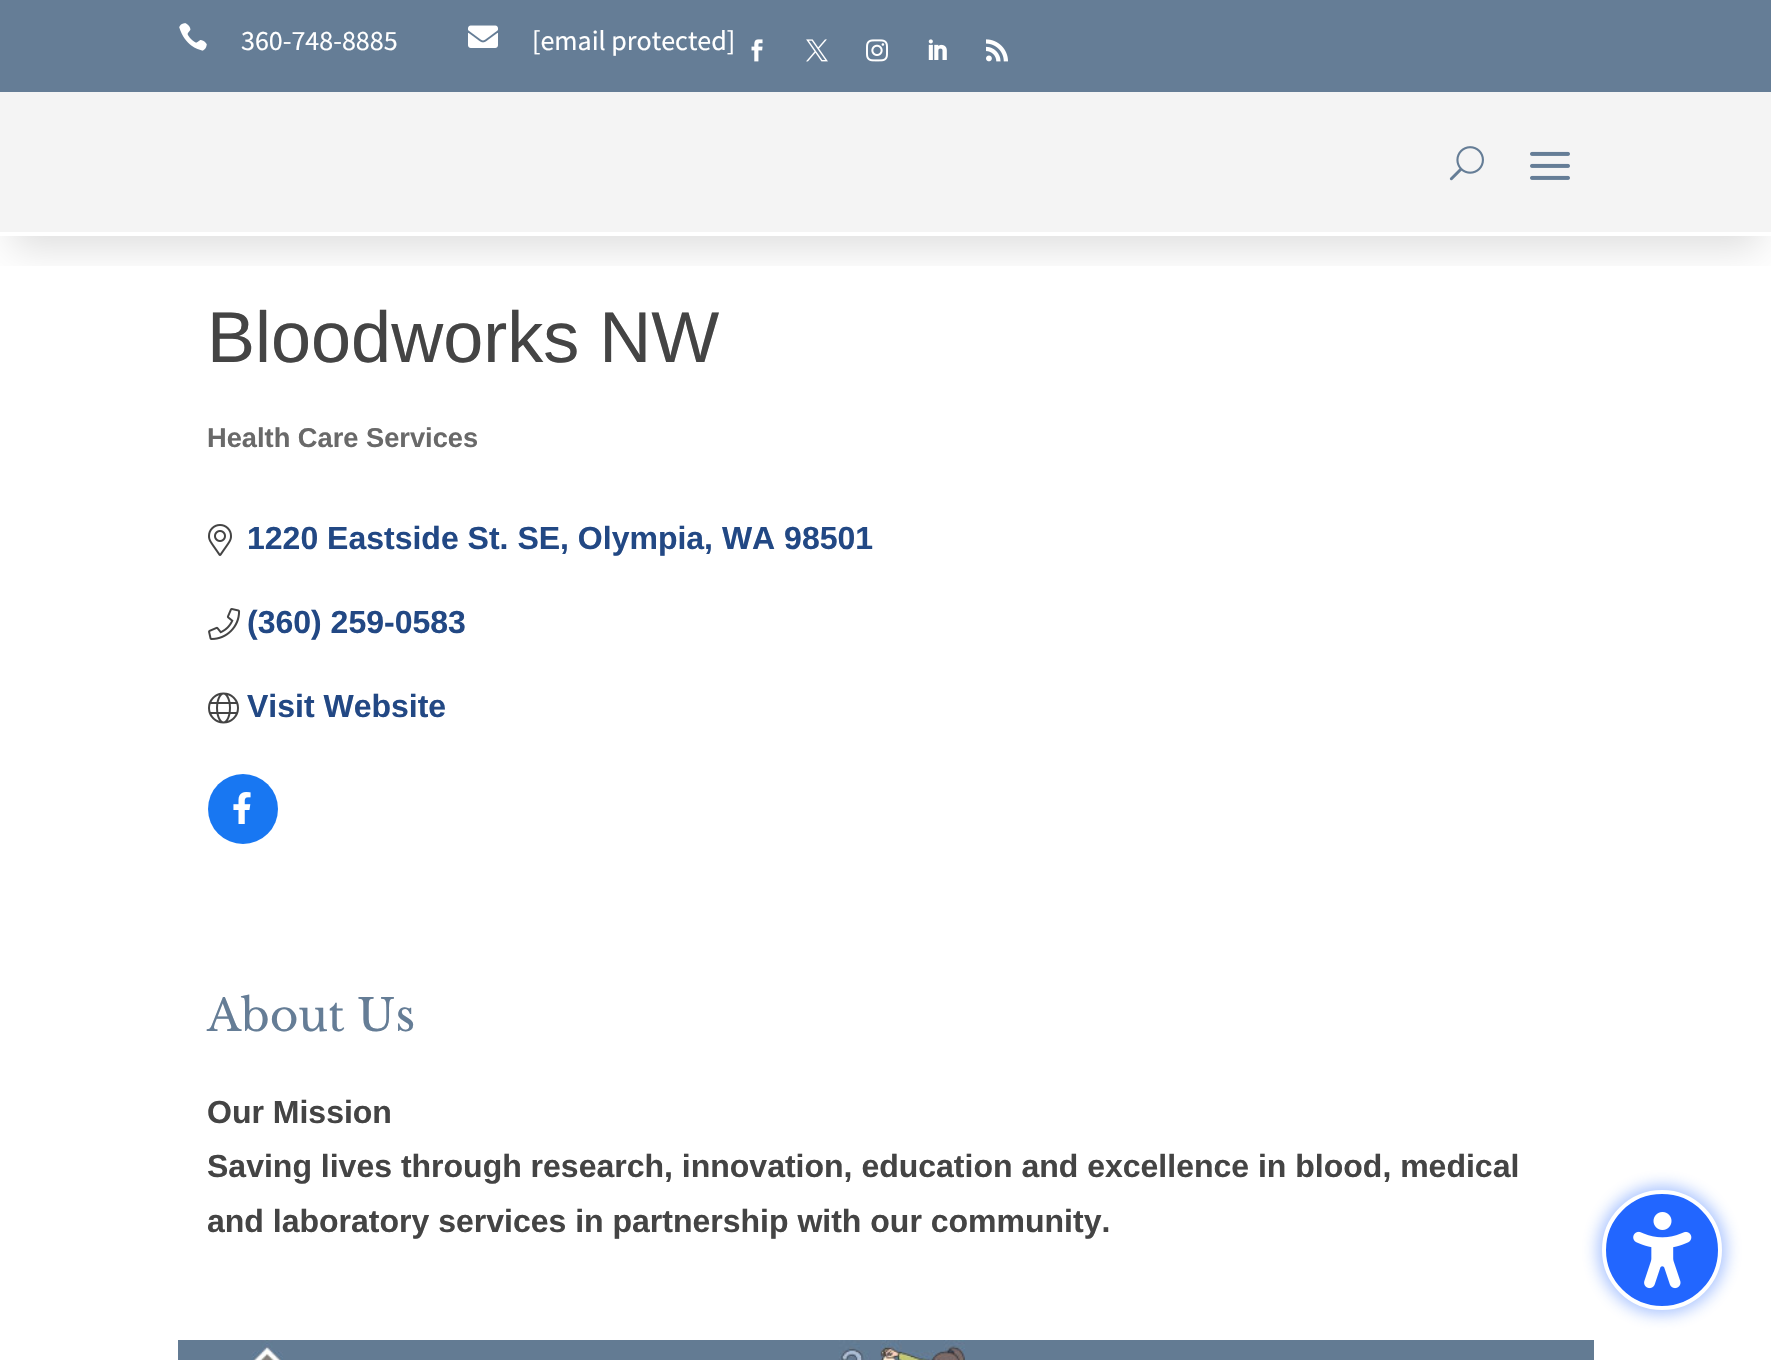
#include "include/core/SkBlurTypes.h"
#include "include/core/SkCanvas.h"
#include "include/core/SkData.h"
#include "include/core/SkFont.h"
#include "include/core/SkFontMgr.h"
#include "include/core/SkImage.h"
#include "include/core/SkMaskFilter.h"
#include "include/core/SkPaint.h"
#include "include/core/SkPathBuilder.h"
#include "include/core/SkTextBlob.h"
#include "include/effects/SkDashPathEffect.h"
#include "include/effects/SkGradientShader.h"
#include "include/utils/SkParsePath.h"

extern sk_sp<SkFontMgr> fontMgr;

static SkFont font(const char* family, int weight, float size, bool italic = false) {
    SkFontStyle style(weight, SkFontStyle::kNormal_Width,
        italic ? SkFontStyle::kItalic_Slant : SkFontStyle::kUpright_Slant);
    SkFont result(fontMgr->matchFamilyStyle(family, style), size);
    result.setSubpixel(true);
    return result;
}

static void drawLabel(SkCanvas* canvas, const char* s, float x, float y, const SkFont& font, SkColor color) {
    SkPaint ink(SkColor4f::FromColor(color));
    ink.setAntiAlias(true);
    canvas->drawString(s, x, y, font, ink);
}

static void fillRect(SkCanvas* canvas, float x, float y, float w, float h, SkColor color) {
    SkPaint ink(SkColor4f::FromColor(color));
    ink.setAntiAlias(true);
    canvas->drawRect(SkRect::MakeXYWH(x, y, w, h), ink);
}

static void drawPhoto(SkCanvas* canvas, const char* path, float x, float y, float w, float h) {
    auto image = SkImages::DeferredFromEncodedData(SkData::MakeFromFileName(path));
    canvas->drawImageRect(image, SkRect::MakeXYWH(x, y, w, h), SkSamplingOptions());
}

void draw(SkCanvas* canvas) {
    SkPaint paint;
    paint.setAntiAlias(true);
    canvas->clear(0xFFFFFFFF);
    fillRect(canvas, 0, 0, 1771, 92, 0xFF657D96);
    drawPhoto(canvas, "assets/img1.png", 179, 23, 28, 28);
    SkFont font1 = font("Source Sans Pro", 400, 28);
    drawLabel(canvas, "360-748-8885", 241, 50, font1, 0xFFFFFFFF);
    drawPhoto(canvas, "assets/img2.png", 468, 25, 30, 23);
    drawLabel(canvas, "[email protected]", 532, 50, font1, 0xFFFFFFFF);
    drawPhoto(canvas, "assets/img3.png", 751, 39, 12, 23);
    drawPhoto(canvas, "assets/img4.png", 806, 39, 22, 23);
    drawPhoto(canvas, "assets/img5.png", 866, 39, 22, 23);
    drawPhoto(canvas, "assets/img6.png", 928, 39, 19, 21);
    drawPhoto(canvas, "assets/img7.png", 986, 39, 22, 23);
    canvas->save();
    canvas->clipRect(SkRect::MakeXYWH(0, 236, 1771, 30));
    paint.setColor(0x21000000);
    paint.setMaskFilter(SkMaskFilter::MakeBlur(kNormal_SkBlurStyle, 18));
    canvas->drawRect(SkRect::MakeXYWH(12, 128, 1748, 120), paint);
    paint.setMaskFilter(nullptr);
    canvas->restore();
    fillRect(canvas, 0, 92, 1771, 140, 0xFFF4F4F4);
    drawPhoto(canvas, "assets/img8.png", 1449, 146, 35, 35);
    drawPhoto(canvas, "assets/img9.png", 1530, 151, 40, 29);
    SkFont font2 = font("Liberation Sans", 400, 72);
    drawLabel(canvas, "Bloodworks NW", 207, 362, font2, 0xFF444444);
    SkFont font3 = font("Liberation Sans", 700, 27.25f);
    drawLabel(canvas, "Health Care Services", 207, 447, font3, 0xFF696969);
    drawPhoto(canvas, "assets/img10.png", 208, 524, 24, 32);
    SkFont font4 = font("Liberation Sans", 700, 32);
    drawLabel(canvas, "1220 Eastside St. SE, Olympia, WA 98501", 247, 549, font4, 0xFF224884);
    drawPhoto(canvas, "assets/img11.png", 208, 608, 33, 32);
    drawLabel(canvas, "(360) 259-0583", 247, 633, font4, 0xFF224884);
    drawPhoto(canvas, "assets/img12.png", 208, 692, 31, 32);
    drawLabel(canvas, "Visit Website", 247, 717, font4, 0xFF224884);
    paint.setColor(0xFF1877F2);
    canvas->drawCircle(243, 809, 35, paint);
    drawPhoto(canvas, "assets/img13.png", 233, 792, 18, 32);
    SkFont font5 = font("Libre Baskerville", 400, 44);
    drawLabel(canvas, "About Us", 207, 1031, font5, 0xFF657D96);
    drawLabel(canvas, "Our Mission", 207, 1123, font4, 0xFF444444);
    drawLabel(canvas, "Saving lives through research, innovation, education and excellence in blood, medical", 207, 1177, font4, 0xFF444444);
    drawLabel(canvas, "and laboratory services in partnership with our community.", 207, 1232, font4, 0xFF444444);
    drawPhoto(canvas, "assets/img14.png", 178, 1340, 1416, 20);
    paint.setColor(0x662266FF);
    paint.setMaskFilter(SkMaskFilter::MakeBlur(kNormal_SkBlurStyle, 8));
    canvas->drawRoundRect(SkRect::MakeXYWH(1598, 1186, 128, 128), 64, 64, paint);
    paint.setMaskFilter(nullptr);
    paint.setColor(0xFF2266FF);
    canvas->drawCircle(1662, 1250, 58, paint);
    paint.setStroke(true);
    paint.setStrokeWidth(4);
    paint.setColor(0xFFFFFFFF);
    canvas->drawCircle(1662, 1250, 58, paint);
    drawPhoto(canvas, "assets/img15.png", 1633, 1212, 59, 77);
}
